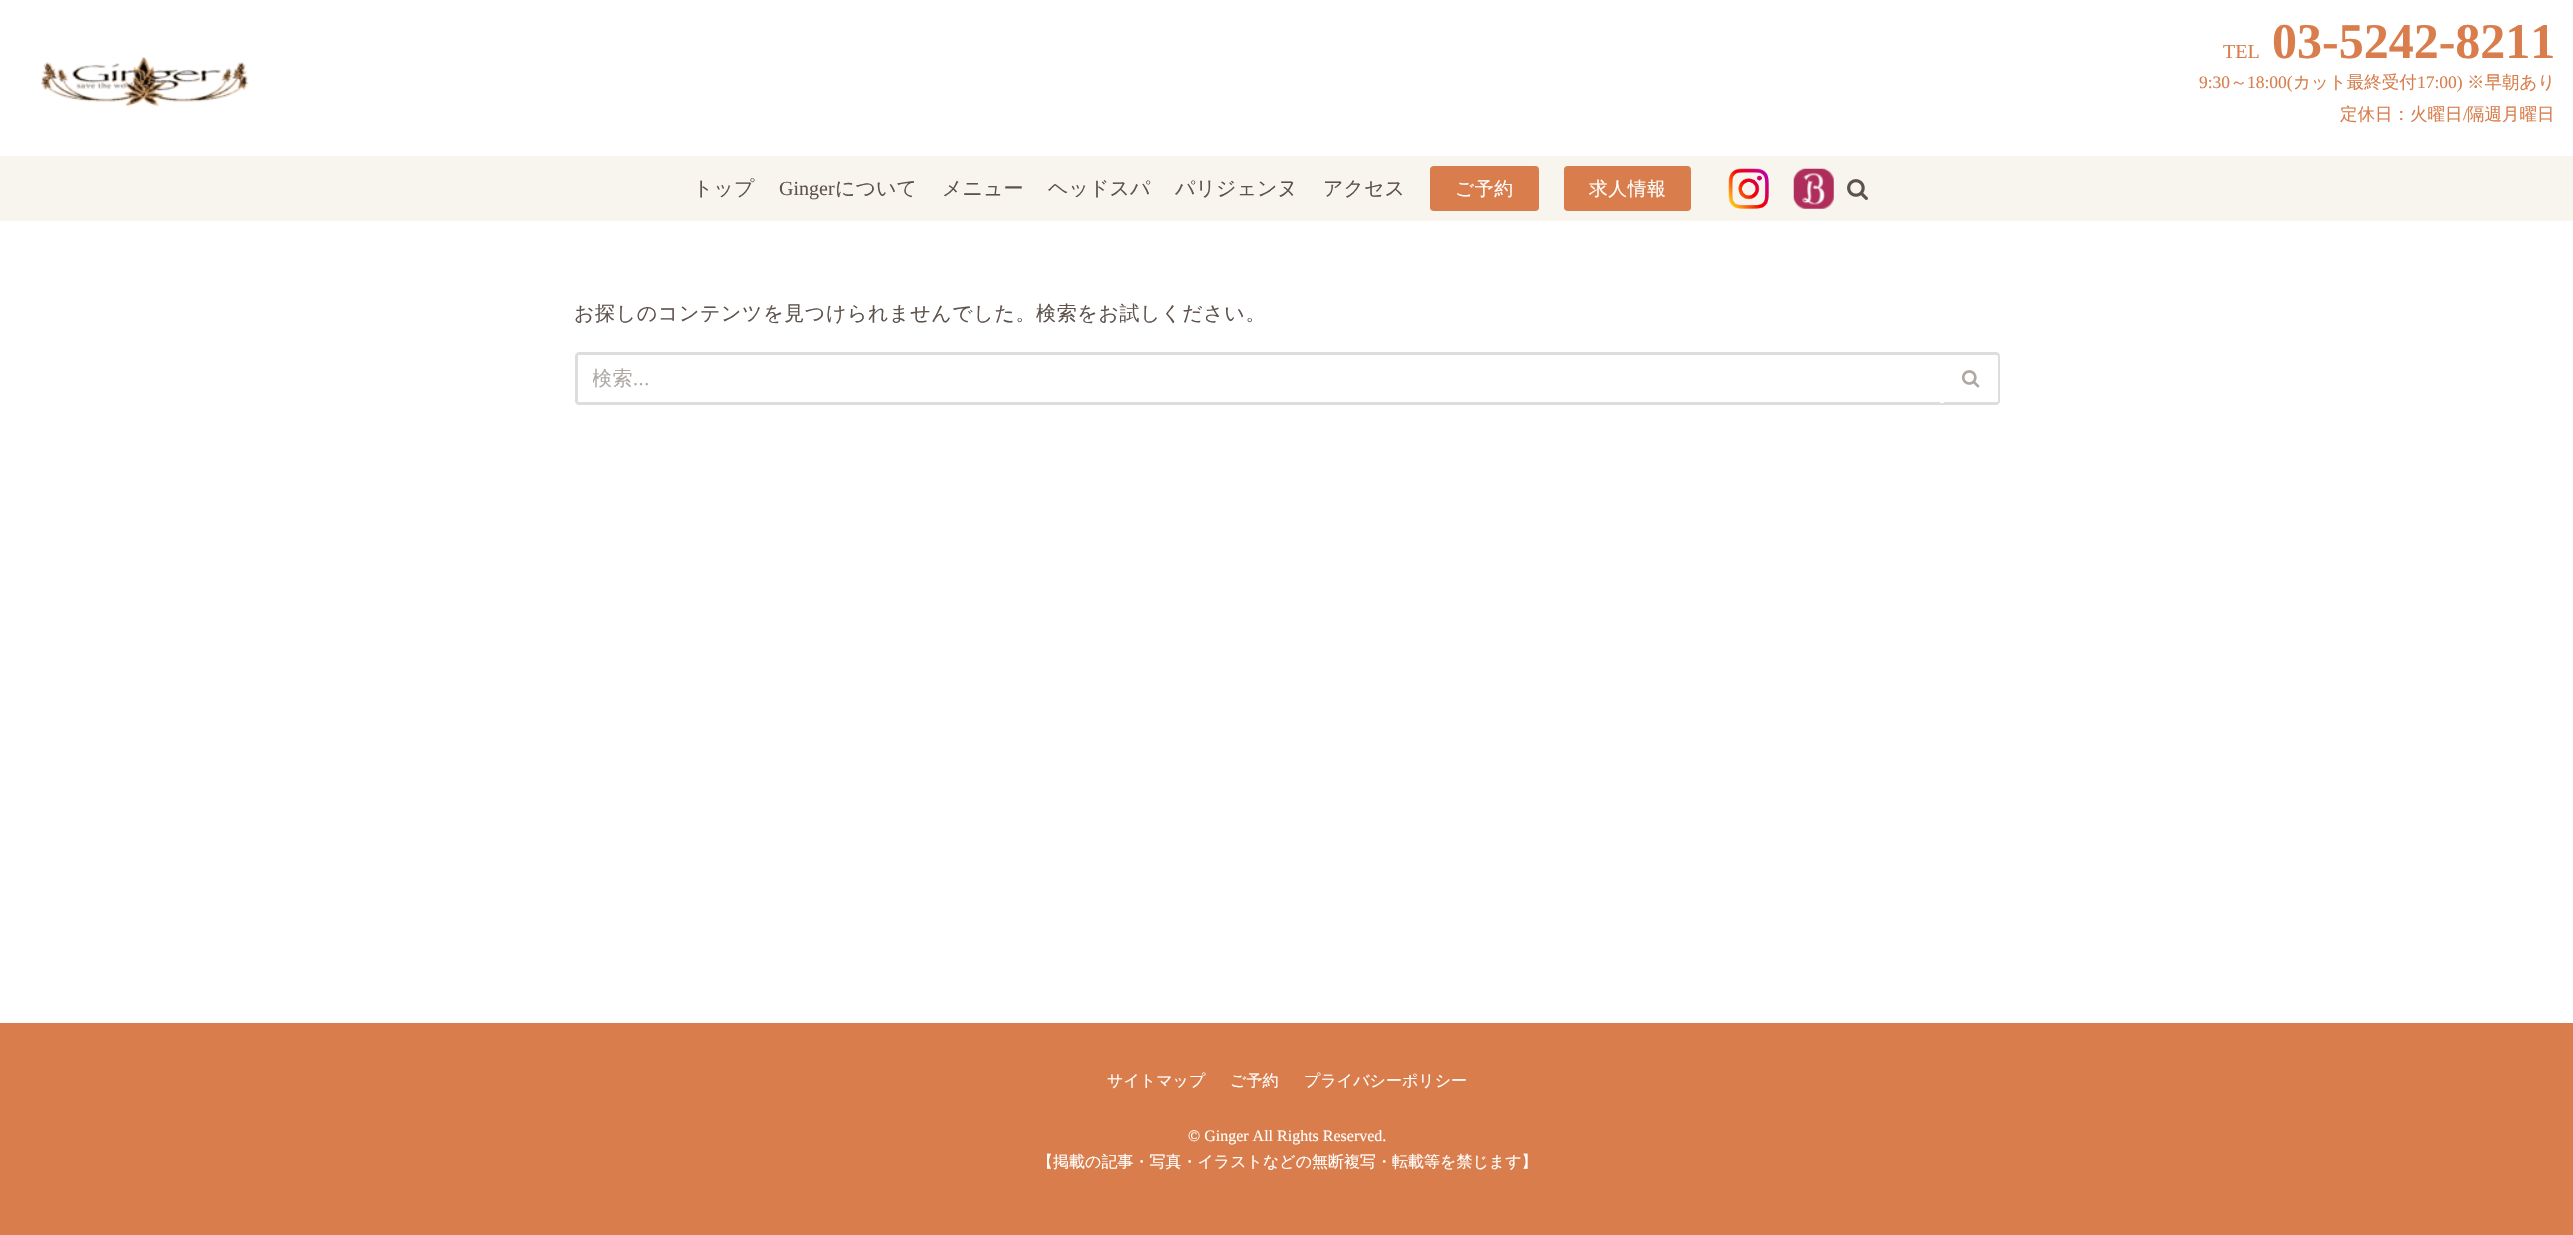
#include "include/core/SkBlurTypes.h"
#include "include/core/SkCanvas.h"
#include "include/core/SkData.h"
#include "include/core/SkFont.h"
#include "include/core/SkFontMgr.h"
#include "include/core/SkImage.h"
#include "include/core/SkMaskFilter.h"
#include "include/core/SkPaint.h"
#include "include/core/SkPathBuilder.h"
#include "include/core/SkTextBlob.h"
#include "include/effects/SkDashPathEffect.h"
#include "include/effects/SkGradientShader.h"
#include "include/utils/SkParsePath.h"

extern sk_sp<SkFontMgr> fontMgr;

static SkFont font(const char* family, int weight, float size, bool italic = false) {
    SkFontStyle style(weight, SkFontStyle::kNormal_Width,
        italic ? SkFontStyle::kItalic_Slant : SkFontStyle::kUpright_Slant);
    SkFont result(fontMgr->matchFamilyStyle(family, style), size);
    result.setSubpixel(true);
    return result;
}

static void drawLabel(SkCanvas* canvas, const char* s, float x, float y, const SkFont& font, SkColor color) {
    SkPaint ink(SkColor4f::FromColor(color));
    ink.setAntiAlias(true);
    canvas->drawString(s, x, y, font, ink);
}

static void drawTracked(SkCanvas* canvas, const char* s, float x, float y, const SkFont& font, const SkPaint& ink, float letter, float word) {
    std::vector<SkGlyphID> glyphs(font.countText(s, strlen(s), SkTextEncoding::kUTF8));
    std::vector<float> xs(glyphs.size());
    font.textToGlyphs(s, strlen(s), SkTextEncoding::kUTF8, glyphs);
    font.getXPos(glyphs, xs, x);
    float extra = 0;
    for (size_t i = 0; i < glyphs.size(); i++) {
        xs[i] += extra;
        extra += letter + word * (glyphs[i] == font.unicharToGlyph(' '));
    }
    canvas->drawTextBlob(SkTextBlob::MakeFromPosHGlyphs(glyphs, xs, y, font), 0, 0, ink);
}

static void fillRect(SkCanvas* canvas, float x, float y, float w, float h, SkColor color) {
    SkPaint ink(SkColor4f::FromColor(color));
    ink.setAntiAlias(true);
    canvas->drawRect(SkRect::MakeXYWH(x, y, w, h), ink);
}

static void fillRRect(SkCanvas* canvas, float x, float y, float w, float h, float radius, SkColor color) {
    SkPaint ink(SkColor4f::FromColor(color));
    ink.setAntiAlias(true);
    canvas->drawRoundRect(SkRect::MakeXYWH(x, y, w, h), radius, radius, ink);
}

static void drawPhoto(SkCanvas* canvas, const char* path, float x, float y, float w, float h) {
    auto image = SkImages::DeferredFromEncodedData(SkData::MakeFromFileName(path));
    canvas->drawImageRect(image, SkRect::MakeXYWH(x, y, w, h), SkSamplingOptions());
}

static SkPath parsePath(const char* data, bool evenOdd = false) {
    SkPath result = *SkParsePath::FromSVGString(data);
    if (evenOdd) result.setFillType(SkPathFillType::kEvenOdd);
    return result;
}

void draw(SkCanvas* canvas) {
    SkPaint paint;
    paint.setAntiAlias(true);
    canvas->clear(0xFFFFFFFF);
    drawPhoto(canvas, "assets/img1.png", 40, 57, 209, 50);
    SkFont font1 = font("Liberation Serif", 400, 20);
    drawLabel(canvas, "TEL", 2223, 58, font1, 0xFFD87D4B);
    SkFont font2 = font("Liberation Serif", 700, 50);
    drawLabel(canvas, "03-5242-8211", 2272, 58, font2, 0xFFD87D4B);
    SkFont font3 = font("Liberation Serif", 400, 17.5f);
    drawLabel(canvas, "9:30", 2199, 88, font3, 0xFFD87D4B);
    SkFont font4 = font("WenQuanYi Zen Hei", 500, 17.5f);
    drawLabel(canvas, "～", 2230, 88, font4, 0xFFD87D4B);
    drawLabel(canvas, "18:00(", 2247, 88, font3, 0xFFD87D4B);
    drawLabel(canvas, "カット最終受付", 2293, 88, font4, 0xFFD87D4B);
    drawLabel(canvas, "17:00)", 2417, 88, font3, 0xFFD87D4B);
    drawLabel(canvas, "※早朝あり", 2467, 88, font4, 0xFFD87D4B);
    drawLabel(canvas, "定休日：火曜日", 2340, 120, font4, 0xFFD87D4B);
    drawLabel(canvas, "/", 2463, 120, font3, 0xFFD87D4B);
    drawLabel(canvas, "隔週月曜日", 2467, 120, font4, 0xFFD87D4B);
    fillRect(canvas, 0, 156, 2573, 65, 0xFFF8F5EF);
    SkFont font5 = font("WenQuanYi Zen Hei", 500, 20);
    drawLabel(canvas, "トップ", 693, 195, font5, 0xFF5E524C);
    drawLabel(canvas, "Ginger", 779, 195, font1, 0xFF5E524C);
    drawLabel(canvas, "について", 835, 195, font5, 0xFF5E524C);
    drawLabel(canvas, "メニュー", 942, 195, font5, 0xFF5E524C);
    drawLabel(canvas, "ヘッドスパ", 1048, 195, font5, 0xFF5E524C);
    drawLabel(canvas, "パリジェンヌ", 1175, 195, font5, 0xFF5E524C);
    drawLabel(canvas, "アクセス", 1323, 195, font5, 0xFF5E524C);
    fillRRect(canvas, 1430, 166, 109, 45, 4, 0xFFD87D4B);
    SkFont font6 = font("WenQuanYi Zen Hei", 500, 18.75f);
    paint.setColor(0xFFFFFFFF);
    drawTracked(canvas, "ご予約", 1455, 195, font6, paint, 0.6f, 0);
    fillRRect(canvas, 1564, 166, 127, 45, 4, 0xFFD87D4B);
    drawTracked(canvas, "求人情報", 1589, 195, font6, paint, 0.6f, 0);
    drawPhoto(canvas, "assets/img2.png", 1728, 168, 41, 41);
    drawPhoto(canvas, "assets/img3.png", 1793, 168, 41, 41);
    drawPhoto(canvas, "assets/img4.png", 1847, 179, 21, 21);
    paint.setColor(0xFF5E524C);
    drawTracked(canvas, "お探しのコンテンツを見つけられませんでした。検索をお試しください。", 574, 320, font5, paint, 0.6f, 0);
    paint.setColor(0xFFDDDDDD);
    canvas->drawPath(parsePath("M579 352H1944V405H579C577 405 575 403 575 401V356C575 354 577 352 579 352ZM579 355H1944V402H579C578 402 578 402 578 401V356C578 356 578 355 579 355Z", true), paint);
    canvas->save();
    canvas->clipRect(SkRect::MakeXYWH(593, 366, 1317, 27));
    paint.setColor(0xFFAFA9A6);
    drawTracked(canvas, "検索", 592, 385, font5, paint, 0.6f, 0);
    canvas->restore();
    drawTracked(canvas, "...", 633, 385, font1, paint, 0.6f, 0);
    paint.setColor(0xFFDDDDDD);
    canvas->drawPath(parsePath("M1944 352H1996C1998 352 2000 354 2000 356V401C2000 403 1998 405 1996 405H1944ZM1944 355H1996C1997 355 1998 356 1998 356V401C1998 402 1997 402 1996 402H1944Z", true), paint);
    drawPhoto(canvas, "assets/img5.png", 1961, 370, 19, 18);
    fillRect(canvas, 1940, 402, 4, 1, 0xFFFFFFFF);
    fillRect(canvas, 0, 1023, 2573, 212, 0xFFD87D4B);
    SkFont font7 = font("WenQuanYi Zen Hei", 500, 16);
    drawLabel(canvas, "サイトマップ", 1107, 1086, font7, 0xFFFFFFFF);
    drawLabel(canvas, "ご予約", 1230, 1086, font7, 0xFFFFFFFF);
    drawLabel(canvas, "プライバシーポリシー", 1304, 1086, font7, 0xFFFFFFFF);
    SkFont font8 = font("Liberation Serif", 400, 16);
    drawLabel(canvas, "© Ginger All Rights Reserved.", 1188, 1141, font8, 0xFFFFFFFF);
    drawLabel(canvas, "【掲載の記事・写真・イラストなどの無断複写・転載等を禁じます】", 1037, 1167, font7, 0xFFFFFFFF);
}
